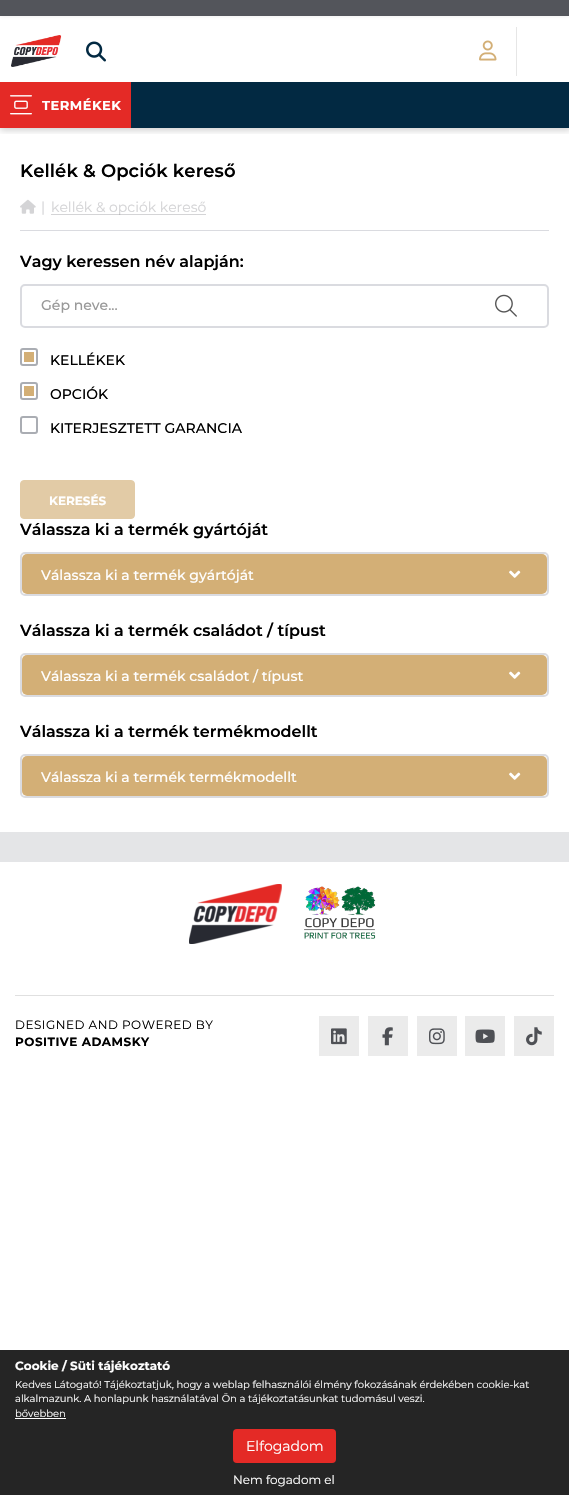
#include "include/core/SkBlurTypes.h"
#include "include/core/SkCanvas.h"
#include "include/core/SkData.h"
#include "include/core/SkFont.h"
#include "include/core/SkFontMgr.h"
#include "include/core/SkImage.h"
#include "include/core/SkMaskFilter.h"
#include "include/core/SkPaint.h"
#include "include/core/SkPathBuilder.h"
#include "include/core/SkTextBlob.h"
#include "include/effects/SkDashPathEffect.h"
#include "include/effects/SkGradientShader.h"
#include "include/utils/SkParsePath.h"

extern sk_sp<SkFontMgr> fontMgr;

static SkFont font(const char* family, int weight, float size, bool italic = false) {
    SkFontStyle style(weight, SkFontStyle::kNormal_Width,
        italic ? SkFontStyle::kItalic_Slant : SkFontStyle::kUpright_Slant);
    SkFont result(fontMgr->matchFamilyStyle(family, style), size);
    result.setSubpixel(true);
    return result;
}

static void drawLabel(SkCanvas* canvas, const char* s, float x, float y, const SkFont& font, SkColor color) {
    SkPaint ink(SkColor4f::FromColor(color));
    ink.setAntiAlias(true);
    canvas->drawString(s, x, y, font, ink);
}

static void drawTracked(SkCanvas* canvas, const char* s, float x, float y, const SkFont& font, const SkPaint& ink, float letter, float word) {
    std::vector<SkGlyphID> glyphs(font.countText(s, strlen(s), SkTextEncoding::kUTF8));
    std::vector<float> xs(glyphs.size());
    font.textToGlyphs(s, strlen(s), SkTextEncoding::kUTF8, glyphs);
    font.getXPos(glyphs, xs, x);
    float extra = 0;
    for (size_t i = 0; i < glyphs.size(); i++) {
        xs[i] += extra;
        extra += letter + word * (glyphs[i] == font.unicharToGlyph(' '));
    }
    canvas->drawTextBlob(SkTextBlob::MakeFromPosHGlyphs(glyphs, xs, y, font), 0, 0, ink);
}

static void fillRect(SkCanvas* canvas, float x, float y, float w, float h, SkColor color) {
    SkPaint ink(SkColor4f::FromColor(color));
    ink.setAntiAlias(true);
    canvas->drawRect(SkRect::MakeXYWH(x, y, w, h), ink);
}

static void fillRRect(SkCanvas* canvas, float x, float y, float w, float h, float radius, SkColor color) {
    SkPaint ink(SkColor4f::FromColor(color));
    ink.setAntiAlias(true);
    canvas->drawRoundRect(SkRect::MakeXYWH(x, y, w, h), radius, radius, ink);
}

static void drawPhoto(SkCanvas* canvas, const char* path, float x, float y, float w, float h) {
    auto image = SkImages::DeferredFromEncodedData(SkData::MakeFromFileName(path));
    canvas->drawImageRect(image, SkRect::MakeXYWH(x, y, w, h), SkSamplingOptions());
}

void draw(SkCanvas* canvas) {
    SkPaint paint;
    paint.setAntiAlias(true);
    canvas->clear(0xFFFFFFFF);
    paint.setColor(0x1A232324);
    paint.setMaskFilter(SkMaskFilter::MakeBlur(kNormal_SkBlurStyle, 2));
    canvas->drawRect(SkRect::MakeXYWH(0, 0, 569, 16), paint);
    paint.setMaskFilter(nullptr);
    canvas->save();
    canvas->clipRect(SkRect::MakeXYWH(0, 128, 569, 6));
    paint.setColor(0x33000000);
    paint.setMaskFilter(SkMaskFilter::MakeBlur(kNormal_SkBlurStyle, 3.5f));
    canvas->drawRect(SkRect::MakeXYWH(0, 12, 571, 118), paint);
    paint.setMaskFilter(nullptr);
    canvas->restore();
    fillRect(canvas, 0, 0, 569, 16, 0xFF53555B);
    drawPhoto(canvas, "assets/img1.png", 11, 35, 51, 32);
    drawPhoto(canvas, "assets/img2.png", 86, 41, 20, 21);
    drawPhoto(canvas, "assets/img3.png", 479, 40, 18, 21);
    fillRect(canvas, 516, 27, 1, 49, 0xFFE6E6E6);
    fillRect(canvas, 131, 82, 438, 46, 0xFF022942);
    fillRect(canvas, 0, 82, 131, 46, 0xFFE42A26);
    drawPhoto(canvas, "assets/img4.png", 10, 95, 22, 20);
    SkFont font1 = font("Montserrat", 700, 13);
    paint.setColor(0xFFFFFFFF);
    drawTracked(canvas, "TERMÉKEK", 42, 110, font1, paint, 0.5f, 0);
    fillRect(canvas, 20, 230, 529, 1, 0xFFDADBE0);
    SkFont font2 = font("Montserrat", 600, 18);
    paint.setColor(0xFF000000);
    drawTracked(canvas, "Kellék & Opciók kereső", 20, 177, font2, paint, 0.1f, 0);
    drawPhoto(canvas, "assets/img5.png", 20, 199, 16, 15);
    SkFont font3 = font("Montserrat", 400, 14);
    drawLabel(canvas, "|", 41, 212, font3, 0xFFD4D4D6);
    drawLabel(canvas, "kellék & opciók kereső", 51, 212, font3, 0xFFD4D4D6);
    fillRect(canvas, 51, 214, 155, 1, 0x33282A31);
    SkFont font4 = font("Montserrat", 600, 16);
    drawLabel(canvas, "Vagy keressen név alapján:", 20, 267, font4, 0xFF000000);
    paint.setStroke(true);
    paint.setStrokeWidth(2);
    paint.setColor(0xFFDADBE0);
    canvas->drawRoundRect(SkRect::MakeXYWH(21, 285, 527, 42), 4, 4, paint);
    SkFont font5 = font("Montserrat", 500, 14);
    drawLabel(canvas, "Gép neve...", 41, 310, font5, 0xFF999999);
    drawPhoto(canvas, "assets/img6.png", 495, 294, 22, 23);
    paint.setColor(0xFFAAADB3);
    canvas->drawRoundRect(SkRect::MakeXYWH(21, 349, 16, 16), 2, 2, paint);
    fillRect(canvas, 24, 352, 10, 10, 0xFFD3AF76);
    drawLabel(canvas, "KELLÉKEK", 50, 365, font5, 0xFF000000);
    canvas->drawRoundRect(SkRect::MakeXYWH(21, 383, 16, 16), 2, 2, paint);
    fillRect(canvas, 24, 386, 10, 10, 0xFFD3AF76);
    drawLabel(canvas, "OPCIÓK", 50, 399, font5, 0xFF000000);
    canvas->drawRoundRect(SkRect::MakeXYWH(21, 417, 16, 16), 2, 2, paint);
    drawLabel(canvas, "KITERJESZTETT GARANCIA", 50, 433, font5, 0xFF000000);
    paint.setStroke(false);
    paint.setColor(0xFFE2CBA6);
    canvas->drawRoundRect(SkRect::MakeXYWH(20.5f, 480.5f, 114, 38), 3.5f, 3.5f, paint);
    paint.setStroke(true);
    paint.setStrokeWidth(1);
    canvas->drawRoundRect(SkRect::MakeXYWH(20.5f, 480.5f, 114, 38), 3.5f, 3.5f, paint);
    SkFont font6 = font("Montserrat", 700, 12);
    drawLabel(canvas, "KERESÉS", 49, 505, font6, 0xFFFFFFFF);
    drawLabel(canvas, "Válassza ki a termék gyártóját", 20, 535, font4, 0xFF000000);
    paint.setStrokeWidth(2);
    paint.setColor(0xFFDADBE0);
    canvas->drawRoundRect(SkRect::MakeXYWH(21, 553, 527, 42), 4, 4, paint);
    fillRRect(canvas, 22, 554, 525, 40, 5, 0xFFD3AF76);
    drawLabel(canvas, "Válassza ki a termék gyártóját", 41, 580, font5, 0xFFFFFFFF);
    drawPhoto(canvas, "assets/img7.png", 509, 570, 12, 8);
    drawLabel(canvas, "Válassza ki a termék családot / típust", 20, 636, font4, 0xFF000000);
    canvas->drawRoundRect(SkRect::MakeXYWH(21, 654, 527, 42), 4, 4, paint);
    fillRRect(canvas, 22, 655, 525, 40, 5, 0xFFD3AF76);
    drawLabel(canvas, "Válassza ki a termék családot / típust", 41, 681, font5, 0xFFFFFFFF);
    drawPhoto(canvas, "assets/img7.png", 509, 671, 12, 8);
    drawLabel(canvas, "Válassza ki a termék termékmodellt", 20, 737, font4, 0xFF000000);
    canvas->drawRoundRect(SkRect::MakeXYWH(21, 755, 527, 42), 4, 4, paint);
    fillRRect(canvas, 22, 756, 525, 40, 5, 0xFFD3AF76);
    drawLabel(canvas, "Válassza ki a termék termékmodellt", 41, 782, font5, 0xFFFFFFFF);
    drawPhoto(canvas, "assets/img7.png", 509, 772, 12, 8);
    fillRect(canvas, 0, 832, 569, 30, 0xFFE4E5E7);
    drawPhoto(canvas, "assets/img8.png", 189, 884, 93, 60);
    drawPhoto(canvas, "assets/img9.png", 304, 886, 72, 53);
    fillRect(canvas, 15, 995, 539, 1, 0xFFE0E0E0);
    SkFont font7 = font("Montserrat", 400, 12);
    paint.setStroke(false);
    paint.setColor(0xFF000000);
    drawTracked(canvas, "DESIGNED AND POWERED BY", 15, 1029, font7, paint, 0.5f, 0);
    drawTracked(canvas, "POSITIVE ADAMSKY", 15, 1046, font6, paint, 0.5f, 0);
    fillRect(canvas, 319, 1016, 40, 40, 0xFFEBEBEB);
    drawPhoto(canvas, "assets/img10.png", 331, 1028, 16, 17);
    fillRect(canvas, 368, 1016, 40, 40, 0xFFEBEBEB);
    drawPhoto(canvas, "assets/img11.png", 382, 1027, 11, 19);
    fillRect(canvas, 417, 1016, 40, 40, 0xFFEBEBEB);
    drawPhoto(canvas, "assets/img12.png", 429, 1028, 16, 17);
    fillRect(canvas, 465, 1016, 40, 40, 0xFFEBEBEB);
    drawPhoto(canvas, "assets/img13.png", 475, 1029, 20, 14);
    fillRect(canvas, 514, 1016, 40, 40, 0xFFEBEBEB);
    drawPhoto(canvas, "assets/img14.png", 526, 1027, 16, 19);
    fillRect(canvas, 0, 1350, 569, 145, 0xFF252525);
    drawLabel(canvas, "Cookie / Süti tájékoztató", 15, 1370, font6, 0xFFFFFFFF);
    SkFont font8 = font("Montserrat", 400, 10);
    drawLabel(canvas, "Kedves Látogató! Tájékoztatjuk, hogy a weblap felhasználói élmény fokozásának érdekében cookie-kat", 15, 1388, font8, 0xFFFFFFFF);
    drawLabel(canvas, "alkalmazunk. A honlapunk használatával Ön a tájékoztatásunkat tudomásul veszi.", 15, 1402, font8, 0xFFFFFFFF);
    drawLabel(canvas, "bővebben", 15, 1417, font8, 0xFFFFFFFF);
    fillRect(canvas, 15, 1418, 51, 1, 0xFFFFFFFF);
    fillRRect(canvas, 233, 1429, 103, 34, 4, 0xFFE42A26);
    drawLabel(canvas, "Elfogadom", 246, 1451, font3, 0xFFFFFFFF);
    drawLabel(canvas, "Nem fogadom el", 233, 1484, font7, 0xFFFFFFFF);
}
